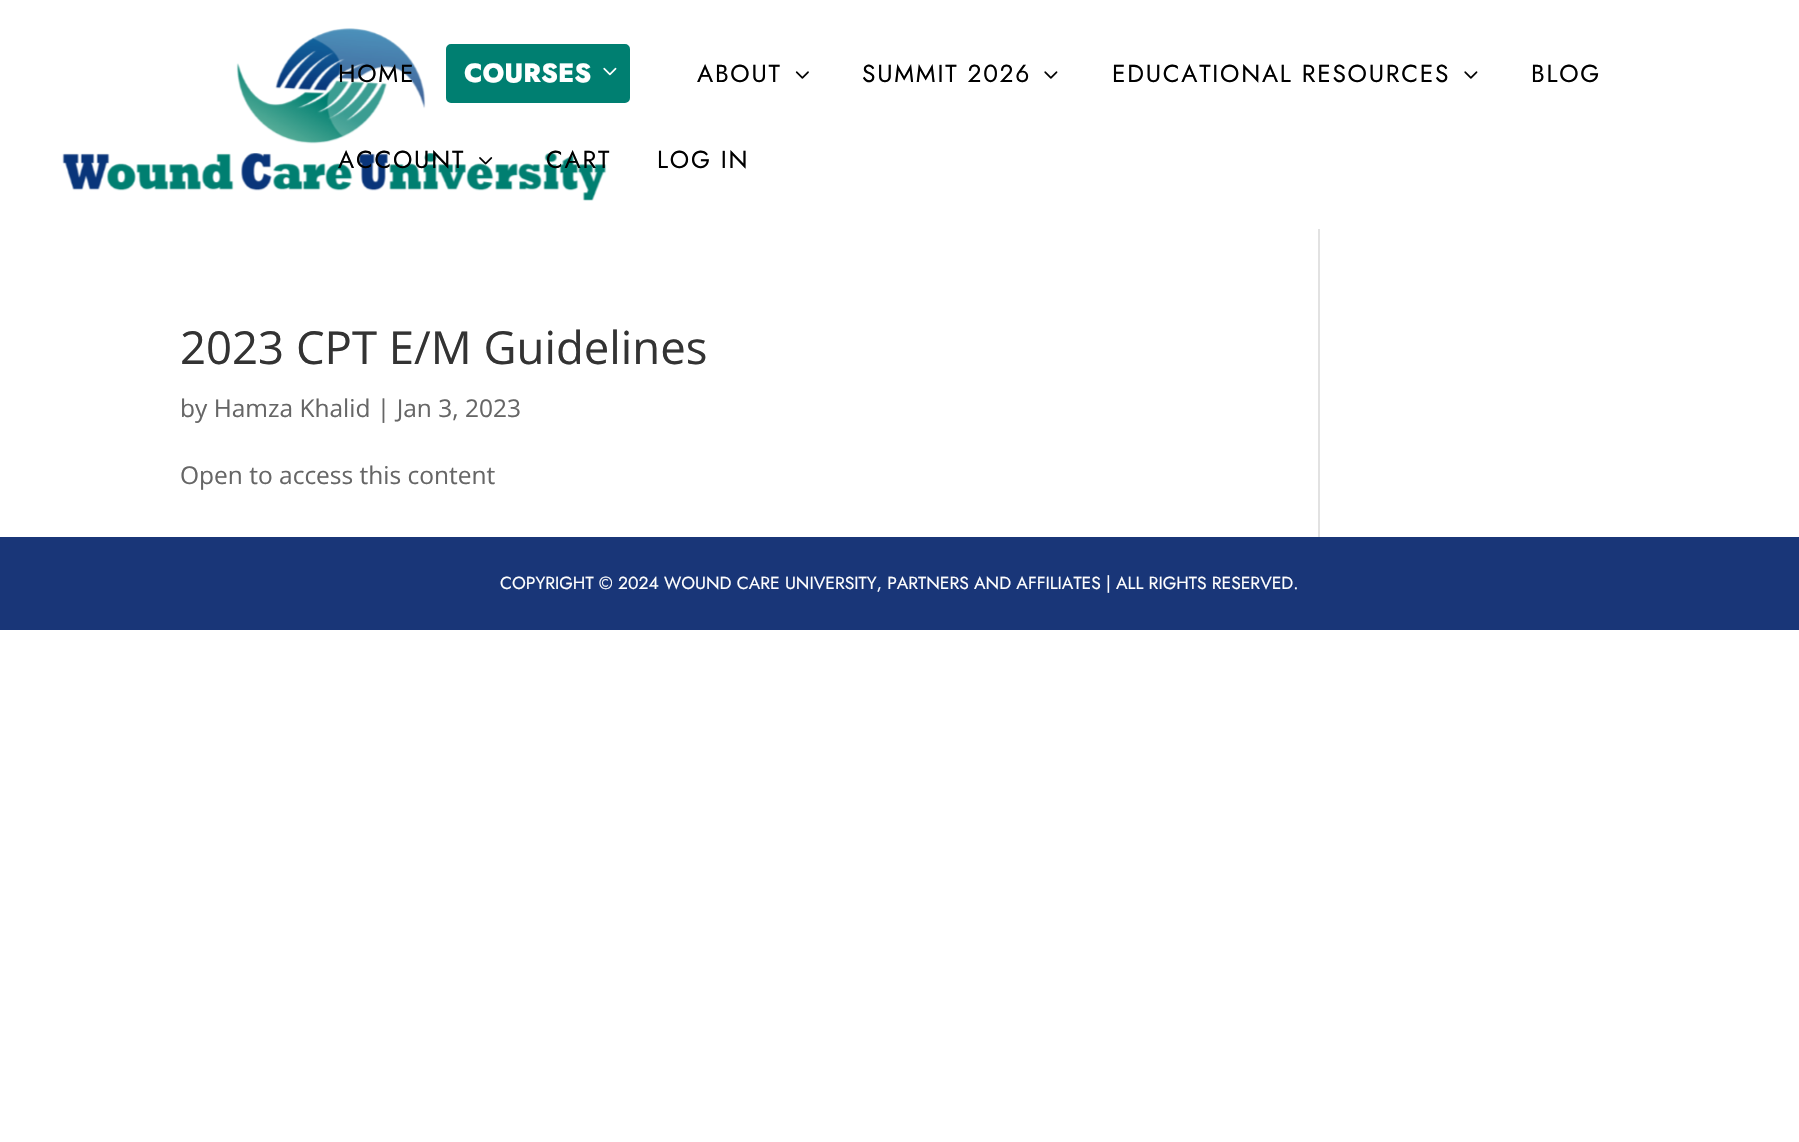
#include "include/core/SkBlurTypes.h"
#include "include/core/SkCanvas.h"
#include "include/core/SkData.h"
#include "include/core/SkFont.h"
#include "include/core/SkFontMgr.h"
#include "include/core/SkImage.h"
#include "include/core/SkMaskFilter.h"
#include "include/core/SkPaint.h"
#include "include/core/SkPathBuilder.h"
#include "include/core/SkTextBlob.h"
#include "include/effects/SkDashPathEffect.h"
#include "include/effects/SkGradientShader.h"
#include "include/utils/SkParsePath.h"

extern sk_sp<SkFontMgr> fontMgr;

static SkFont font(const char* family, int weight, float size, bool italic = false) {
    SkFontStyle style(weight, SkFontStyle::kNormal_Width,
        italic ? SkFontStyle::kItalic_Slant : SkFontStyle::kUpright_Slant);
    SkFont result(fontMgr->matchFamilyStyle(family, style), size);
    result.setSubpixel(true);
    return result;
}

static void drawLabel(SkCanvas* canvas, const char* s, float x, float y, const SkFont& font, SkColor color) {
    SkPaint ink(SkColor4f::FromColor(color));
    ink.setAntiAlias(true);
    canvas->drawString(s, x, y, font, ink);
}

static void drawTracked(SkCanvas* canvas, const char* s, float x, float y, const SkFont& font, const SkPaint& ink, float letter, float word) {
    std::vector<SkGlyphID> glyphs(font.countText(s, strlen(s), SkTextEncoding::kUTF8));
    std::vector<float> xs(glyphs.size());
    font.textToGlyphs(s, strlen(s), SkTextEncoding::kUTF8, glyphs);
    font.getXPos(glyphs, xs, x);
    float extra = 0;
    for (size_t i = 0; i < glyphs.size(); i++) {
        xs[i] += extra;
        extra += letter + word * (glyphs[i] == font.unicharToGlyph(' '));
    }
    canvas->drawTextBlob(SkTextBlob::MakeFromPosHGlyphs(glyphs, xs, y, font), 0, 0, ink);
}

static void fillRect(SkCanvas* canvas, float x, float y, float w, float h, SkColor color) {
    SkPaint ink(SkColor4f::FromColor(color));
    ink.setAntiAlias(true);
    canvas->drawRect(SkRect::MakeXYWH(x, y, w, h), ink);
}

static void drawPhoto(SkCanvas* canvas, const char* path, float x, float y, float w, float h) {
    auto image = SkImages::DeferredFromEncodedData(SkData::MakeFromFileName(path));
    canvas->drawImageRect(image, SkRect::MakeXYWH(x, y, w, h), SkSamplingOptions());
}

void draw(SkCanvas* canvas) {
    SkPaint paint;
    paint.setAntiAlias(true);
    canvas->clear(0xFFFFFFFF);
    fillRect(canvas, 1318, 222, 2, 315, 0xFFE2E2E2);
    fillRect(canvas, 1318, 222, 2, 7, 0xFFFFFFFF);
    drawPhoto(canvas, "assets/img1.png", 62, 28, 545, 173);
    SkFont font1 = font("Jost", 400, 24.5f);
    paint.setColor(0xFF000000);
    drawTracked(canvas, "HOME", 338, 82, font1, paint, 1.75f, 0);
    paint.setColor(0xFF007F71);
    canvas->drawRoundRect(SkRect::MakeXYWH(448, 46, 180, 55), 3, 3, paint);
    paint.setStroke(true);
    paint.setStrokeWidth(4);
    canvas->drawRoundRect(SkRect::MakeXYWH(448, 46, 180, 55), 3, 3, paint);
    SkFont font2 = font("Jost", 800, 26.25f);
    drawLabel(canvas, "COURSES", 464, 82, font2, 0xFFFFFFFF);
    drawPhoto(canvas, "assets/img2.png", 603, 67, 14, 9);
    paint.setStroke(false);
    paint.setColor(0xFF000000);
    drawTracked(canvas, "ABOUT", 697, 82, font1, paint, 1.75f, 0);
    drawPhoto(canvas, "assets/img3.png", 795, 71, 14, 8);
    drawTracked(canvas, "SUMMIT 2026", 862, 82, font1, paint, 1.75f, 0);
    drawPhoto(canvas, "assets/img4.png", 1044, 71, 14, 8);
    drawTracked(canvas, "EDUCATIONAL RESOURCES", 1112, 82, font1, paint, 1.75f, 0);
    drawPhoto(canvas, "assets/img4.png", 1464, 71, 14, 8);
    drawTracked(canvas, "BLOG", 1531, 82, font1, paint, 1.75f, 0);
    drawTracked(canvas, "ACCOUNT", 338, 168, font1, paint, 1.75f, 0);
    drawPhoto(canvas, "assets/img5.png", 479, 157, 14, 8);
    drawTracked(canvas, "CART", 546, 168, font1, paint, 1.75f, 0);
    drawTracked(canvas, "LOG IN", 657, 168, font1, paint, 1.75f, 0);
    SkFont font3 = font("Open Sans", 400, 45.5f);
    drawLabel(canvas, "2023 CPT E/M Guidelines", 180, 364, font3, 0xFF333333);
    SkFont font4 = font("Open Sans", 400, 24.5f);
    drawLabel(canvas, "by Hamza Khalid | Jan 3, 2023", 180, 417, font4, 0xFF666666);
    drawLabel(canvas, "Open to access this content", 180, 484, font4, 0xFF666666);
    fillRect(canvas, 0, 537, 1799, 93, 0xFF193678);
    SkFont font5 = font("Jost", 400, 17.5f);
    drawLabel(canvas, "COPYRIGHT © 2024 WOUND CARE UNIVERSITY, PARTNERS AND AFFILIATES | ALL RIGHTS RESERVED.", 500, 589, font5, 0xFFFFFFFF);
}
